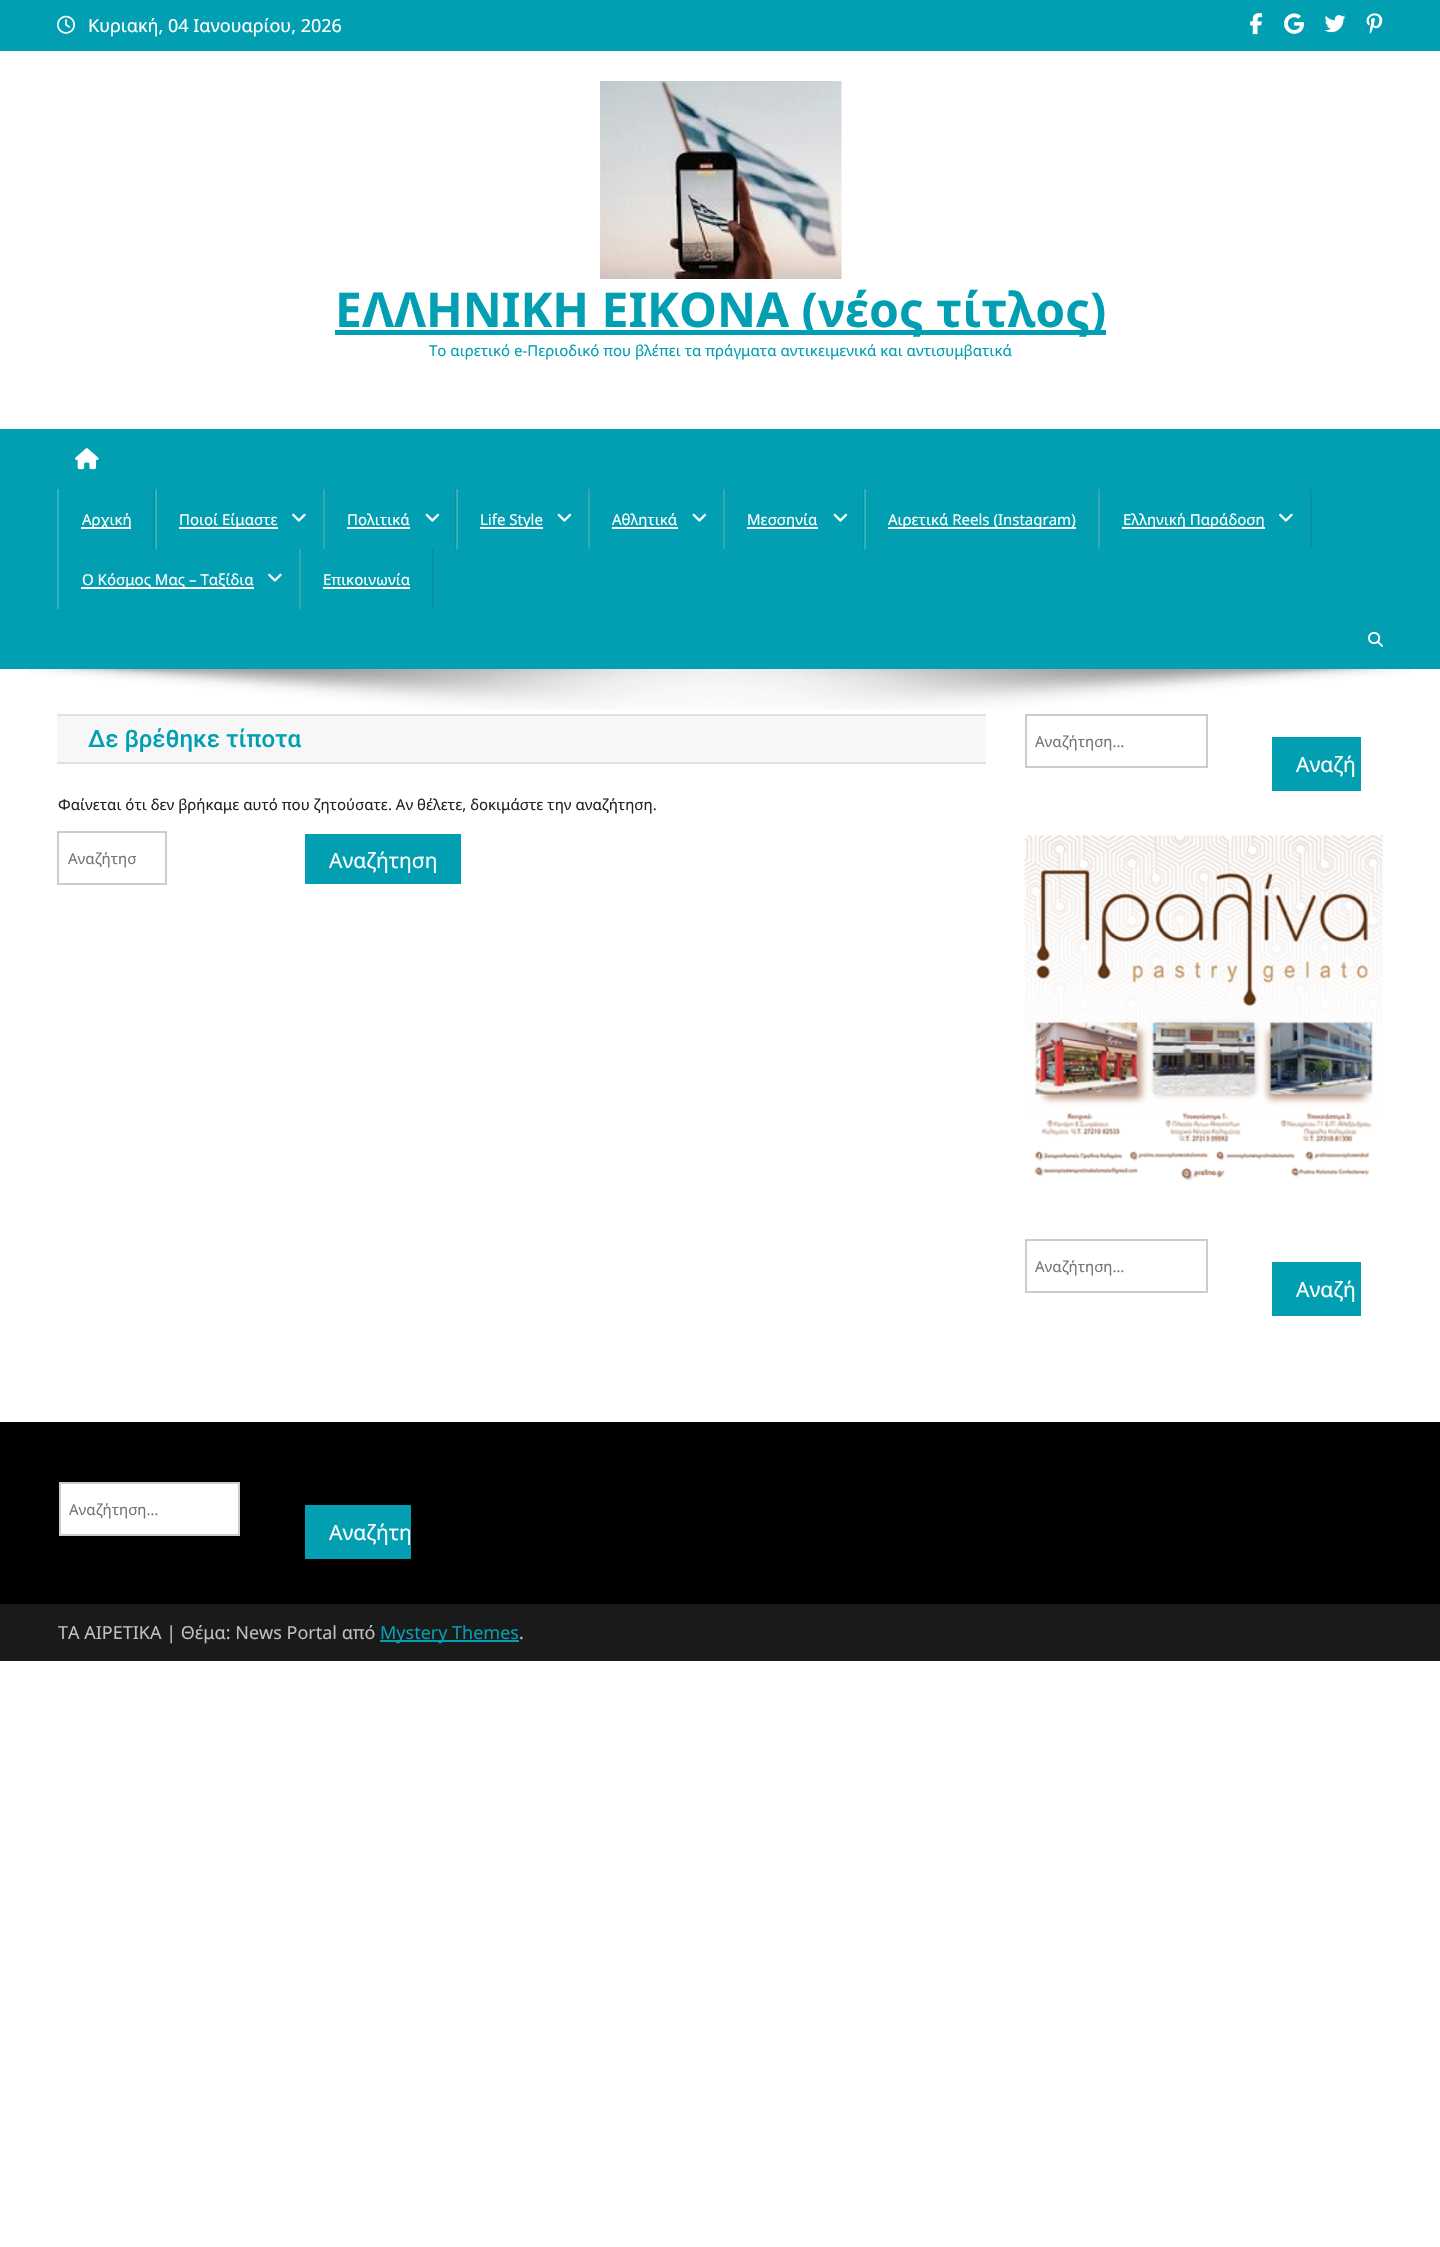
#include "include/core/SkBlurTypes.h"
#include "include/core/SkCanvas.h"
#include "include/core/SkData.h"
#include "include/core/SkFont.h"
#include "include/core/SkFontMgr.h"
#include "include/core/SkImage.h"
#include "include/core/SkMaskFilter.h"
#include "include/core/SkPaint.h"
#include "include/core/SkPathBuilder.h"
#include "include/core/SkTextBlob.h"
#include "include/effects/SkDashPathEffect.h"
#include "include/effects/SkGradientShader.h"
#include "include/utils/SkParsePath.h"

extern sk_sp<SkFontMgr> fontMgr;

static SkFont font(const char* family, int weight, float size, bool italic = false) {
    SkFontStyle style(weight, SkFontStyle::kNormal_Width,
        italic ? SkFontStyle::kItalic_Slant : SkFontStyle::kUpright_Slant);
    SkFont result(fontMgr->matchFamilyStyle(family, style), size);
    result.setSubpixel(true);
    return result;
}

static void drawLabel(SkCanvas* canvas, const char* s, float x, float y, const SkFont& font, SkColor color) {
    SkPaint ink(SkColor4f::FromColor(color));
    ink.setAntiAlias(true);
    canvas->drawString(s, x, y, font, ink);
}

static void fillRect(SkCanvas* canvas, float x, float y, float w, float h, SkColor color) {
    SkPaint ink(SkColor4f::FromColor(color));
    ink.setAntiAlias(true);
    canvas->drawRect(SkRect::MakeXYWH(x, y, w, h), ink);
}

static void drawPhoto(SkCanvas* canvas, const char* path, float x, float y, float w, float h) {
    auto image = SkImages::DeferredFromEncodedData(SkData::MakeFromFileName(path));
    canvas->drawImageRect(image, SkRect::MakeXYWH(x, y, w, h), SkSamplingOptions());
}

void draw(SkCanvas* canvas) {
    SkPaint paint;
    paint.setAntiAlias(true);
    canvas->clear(0xFFFFFFFF);
    fillRect(canvas, 0, 0, 1440, 51, 0xFF029FB2);
    drawPhoto(canvas, "assets/img1.png", 57, 15, 18, 19);
    SkFont font1 = font("Noto Sans", 400, 18);
    drawLabel(canvas, "Κυριακή, 04 Ιανουαρίου, 2026", 88, 32, font1, 0xFFFFFFFF);
    drawPhoto(canvas, "assets/img2.png", 1250, 13, 13, 22);
    drawPhoto(canvas, "assets/img3.png", 1284, 13, 20, 21);
    drawPhoto(canvas, "assets/img4.png", 1324, 15, 22, 18);
    drawPhoto(canvas, "assets/img5.png", 1366, 13, 17, 21);
    drawPhoto(canvas, "assets/img6.png", 600, 81, 242, 198);
    fillRect(canvas, 335, 330, 771, 5, 0xFF029FB2);
    SkFont font2 = font("Noto Sans", 700, 48);
    drawLabel(canvas, "ΕΛΛΗΝΙΚΗ ΕΙΚΟΝΑ (νέος τίτλος)", 335, 327, font2, 0xFF029FB2);
    SkFont font3 = font("Noto Sans", 400, 15);
    drawLabel(canvas, "Το αιρετικό e-Περιοδικό που βλέπει τα πράγματα αντικειμενικά και αντισυμβατικά", 429, 356, font3, 0xFF029FB2);
    fillRect(canvas, 0, 429, 1440, 240, 0xFF029FB2);
    fillRect(canvas, 865, 489, 1, 60, 0xFF35B2C1);
    fillRect(canvas, 457, 489, 1, 60, 0xFF35B2C1);
    drawPhoto(canvas, "assets/img7.png", 75, 448, 24, 22);
    fillRect(canvas, 153, 489, 2, 60, 0xFF0292A4);
    fillRect(canvas, 57, 489, 2, 120, 0xFF35B2C1);
    fillRect(canvas, 81, 527, 50, 2, 0xFFFFFFFF);
    drawLabel(canvas, "Αρχική", 82, 525, font3, 0xFFFFFFFF);
    fillRect(canvas, 155, 489, 2, 60, 0xFF35B2C1);
    fillRect(canvas, 179, 527, 99, 2, 0xFFFFFFFF);
    drawLabel(canvas, "Ποιοί Είμαστε", 179, 525, font3, 0xFFFFFFFF);
    drawPhoto(canvas, "assets/img8.png", 292, 513, 14, 9);
    fillRect(canvas, 455, 489, 1, 60, 0xFF0292A4);
    fillRect(canvas, 456, 489, 1, 60, 0xFF35A8B6);
    fillRect(canvas, 323, 489, 2, 60, 0xFF35A8B6);
    drawLabel(canvas, "Πολιτικά", 347, 525, font3, 0xFFFFFFFF);
    fillRect(canvas, 347, 527, 63, 2, 0xFFFFFFFF);
    drawPhoto(canvas, "assets/img9.png", 425, 513, 15, 9);
    fillRect(canvas, 480, 527, 63, 2, 0xFFFFFFFF);
    drawLabel(canvas, "Life Style", 480, 525, font3, 0xFFFFFFFF);
    drawPhoto(canvas, "assets/img9.png", 557, 513, 15, 9);
    fillRect(canvas, 588, 489, 2, 60, 0xFF35A8B6);
    fillRect(canvas, 612, 527, 66, 2, 0xFFFFFFFF);
    drawLabel(canvas, "Aθλητικά", 612, 525, font3, 0xFFFFFFFF);
    drawPhoto(canvas, "assets/img9.png", 692, 513, 15, 9);
    fillRect(canvas, 863, 489, 1, 60, 0xFF0292A4);
    fillRect(canvas, 864, 489, 1, 60, 0xFF35A8B6);
    fillRect(canvas, 723, 489, 2, 60, 0xFF35A8B6);
    fillRect(canvas, 747, 527, 71, 2, 0xFFFFFFFF);
    drawLabel(canvas, "Μεσσηνία", 747, 525, font3, 0xFFFFFFFF);
    drawPhoto(canvas, "assets/img9.png", 833, 513, 15, 9);
    fillRect(canvas, 888, 527, 188, 2, 0xFFFFFFFF);
    drawLabel(canvas, "Αιρετικά Reels (Instagram)", 888, 525, font3, 0xFFFFFFFF);
    fillRect(canvas, 1310, 489, 2, 60, 0xFF0292A4);
    fillRect(canvas, 1098, 489, 2, 60, 0xFF35A8B6);
    fillRect(canvas, 1122, 527, 143, 2, 0xFFFFFFFF);
    drawLabel(canvas, "Ελληνική Παράδοση", 1123, 525, font3, 0xFFFFFFFF);
    drawPhoto(canvas, "assets/img8.png", 1279, 513, 14, 9);
    fillRect(canvas, 81, 587, 173, 2, 0xFFFFFFFF);
    drawLabel(canvas, "O Κόσμος Μας – Ταξίδια", 82, 585, font3, 0xFFFFFFFF);
    drawPhoto(canvas, "assets/img8.png", 268, 573, 14, 9);
    fillRect(canvas, 432, 549, 2, 60, 0xFF0292A4);
    fillRect(canvas, 299, 549, 2, 60, 0xFF35A8B6);
    drawLabel(canvas, "Επικοινωνία", 323, 585, font3, 0xFFFFFFFF);
    fillRect(canvas, 323, 587, 87, 2, 0xFFFFFFFF);
    drawPhoto(canvas, "assets/img10.png", 1368, 631, 15, 16);
    drawPhoto(canvas, "assets/img11.png", 26, 669, 1386, 41);
    fillRect(canvas, 57, 716, 929, 46, 0xFFF7F7F7);
    fillRect(canvas, 57, 714, 929, 2, 0xFFE1E1E1);
    fillRect(canvas, 57, 762, 929, 2, 0xFFE1E1E1);
    SkFont font4 = font("Roboto", 500, 24);
    drawLabel(canvas, "Δε βρέθηκε τίποτα", 88, 747, font4, 0xFF029FB2);
    drawLabel(canvas, "Φαίνεται ότι δεν βρήκαμε αυτό που ζητούσατε. Αν θέλετε, δοκιμάστε την αναζήτηση.", 58, 810, font3, 0xFF212529);
    paint.setStroke(true);
    paint.setStrokeWidth(2);
    paint.setColor(0xFFCCCCCC);
    canvas->drawRect(SkRect::MakeXYWH(58, 832, 108, 52), paint);
    drawLabel(canvas, "Αναζήτησ", 68, 864, font3, 0xFF757575);
    fillRect(canvas, 305, 834, 156, 50, 0xFF029FB2);
    SkFont font5 = font("Noto Sans", 400, 21);
    drawLabel(canvas, "Αναζήτηση", 329, 868, font5, 0xFFFFFFFF);
    canvas->drawRect(SkRect::MakeXYWH(1026, 715, 181, 52), paint);
    drawLabel(canvas, "Αναζήτηση…", 1035, 747, font3, 0xFF757575);
    fillRect(canvas, 1272, 737, 89, 54, 0xFF029FB2);
    drawLabel(canvas, "Αναζή", 1296, 772, font5, 0xFFFFFFFF);
    drawPhoto(canvas, "assets/img12.png", 1024, 835, 359, 346);
    canvas->drawRect(SkRect::MakeXYWH(1026, 1240, 181, 52), paint);
    drawLabel(canvas, "Αναζήτηση…", 1035, 1272, font3, 0xFF757575);
    fillRect(canvas, 1272, 1262, 89, 54, 0xFF029FB2);
    drawLabel(canvas, "Αναζή", 1296, 1297, font5, 0xFFFFFFFF);
    fillRect(canvas, 0, 1422, 1440, 182, 0xFF000000);
    paint.setStroke(false);
    paint.setColor(0xFFFFFFFF);
    canvas->drawRect(SkRect::MakeXYWH(60, 1483, 179, 52), paint);
    paint.setStroke(true);
    paint.setColor(0xFFCCCCCC);
    canvas->drawRect(SkRect::MakeXYWH(60, 1483, 179, 52), paint);
    drawLabel(canvas, "Αναζήτηση…", 69, 1515, font3, 0xFF757575);
    fillRect(canvas, 305, 1505, 106, 54, 0xFF029FB2);
    canvas->save();
    canvas->clipRect(SkRect::MakeXYWH(306, 1506, 104, 51));
    drawLabel(canvas, "Αναζήτη", 329, 1540, font5, 0xFFFFFFFF);
    canvas->restore();
    fillRect(canvas, 0, 1604, 1440, 57, 0xFF1A1A1A);
    drawLabel(canvas, "ΤΑ ΑΙΡΕΤΙΚΑ | Θέμα: News Portal από", 58, 1639, font1, 0xFFBFBFBF);
    fillRect(canvas, 380, 1640, 139, 2, 0xFF029FB2);
    drawLabel(canvas, "Mystery Themes", 380, 1639, font1, 0xFF029FB2);
    drawLabel(canvas, ".", 519, 1639, font1, 0xFFBFBFBF);
}
